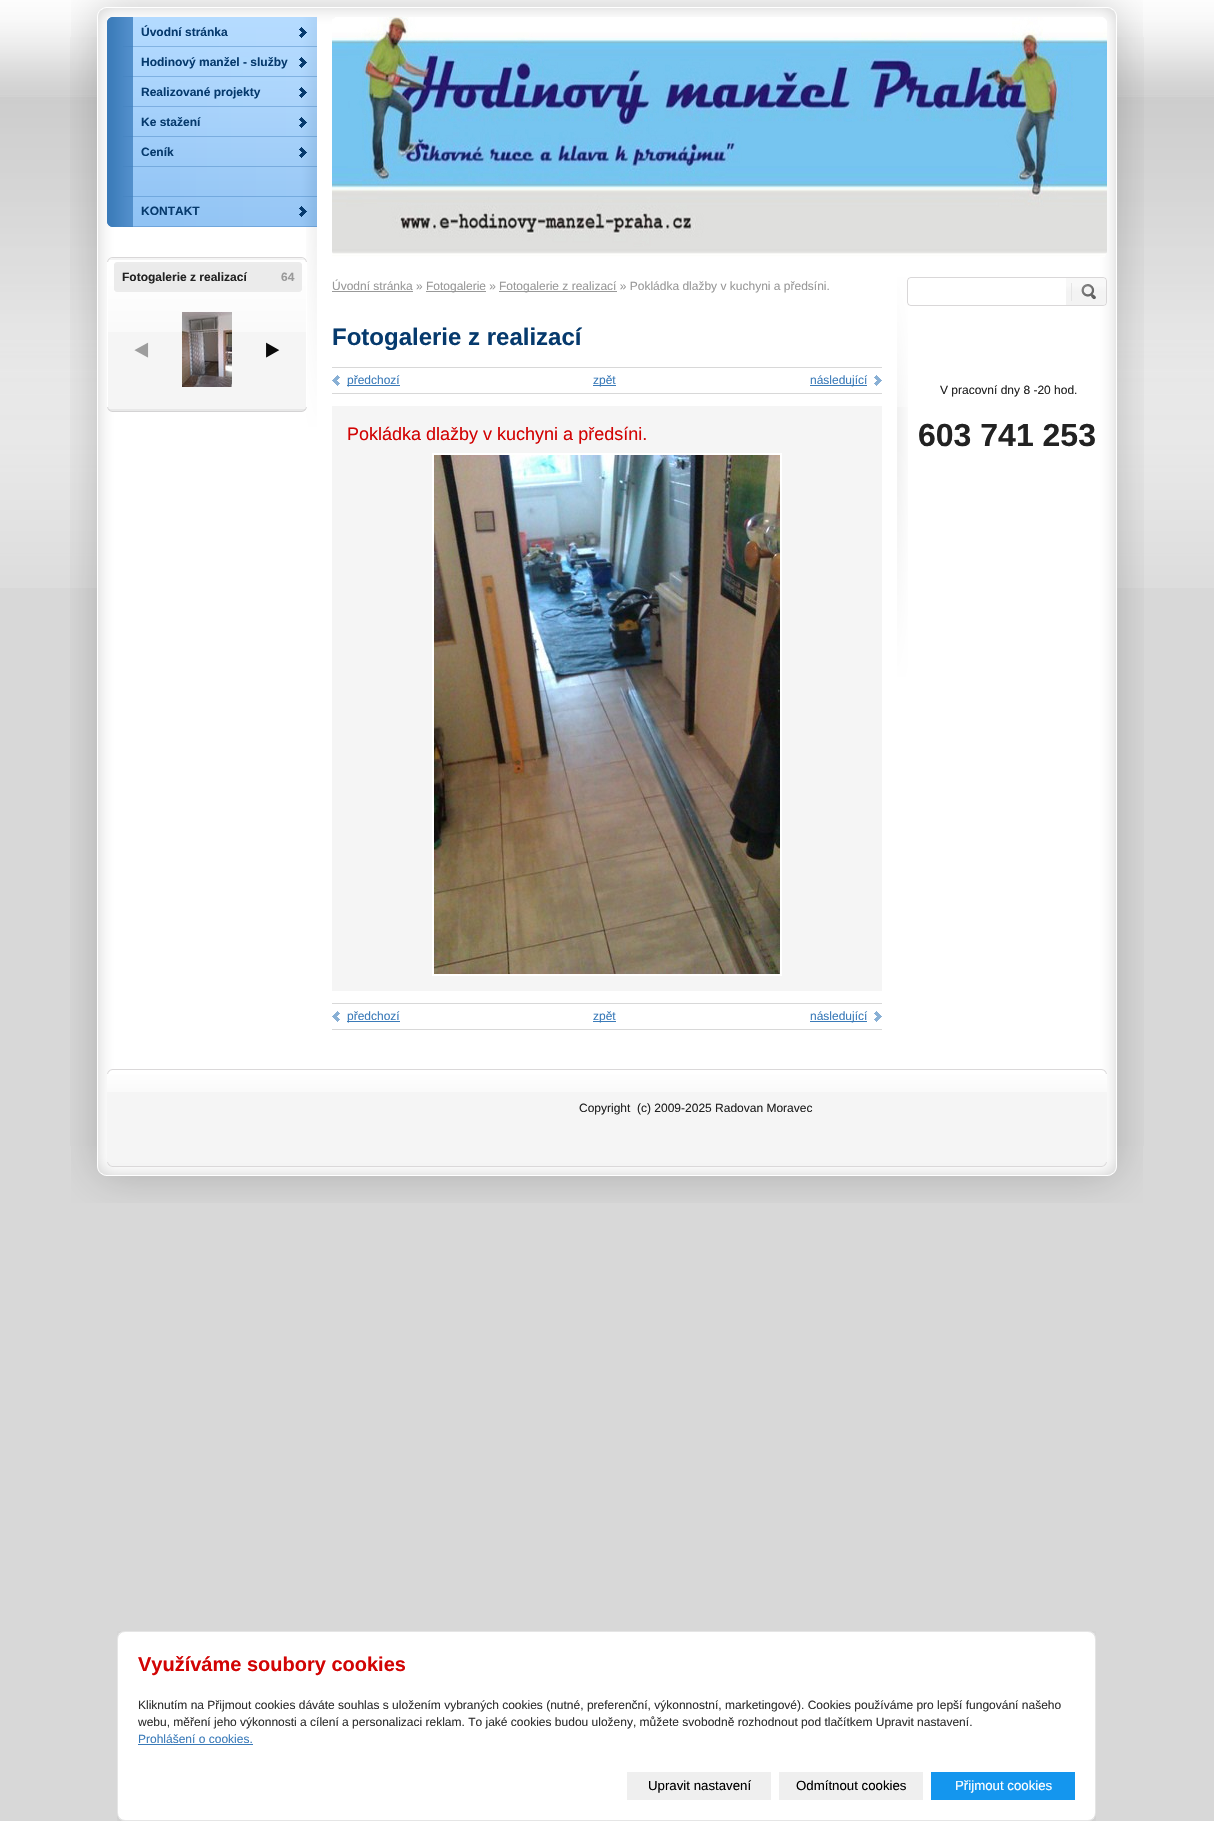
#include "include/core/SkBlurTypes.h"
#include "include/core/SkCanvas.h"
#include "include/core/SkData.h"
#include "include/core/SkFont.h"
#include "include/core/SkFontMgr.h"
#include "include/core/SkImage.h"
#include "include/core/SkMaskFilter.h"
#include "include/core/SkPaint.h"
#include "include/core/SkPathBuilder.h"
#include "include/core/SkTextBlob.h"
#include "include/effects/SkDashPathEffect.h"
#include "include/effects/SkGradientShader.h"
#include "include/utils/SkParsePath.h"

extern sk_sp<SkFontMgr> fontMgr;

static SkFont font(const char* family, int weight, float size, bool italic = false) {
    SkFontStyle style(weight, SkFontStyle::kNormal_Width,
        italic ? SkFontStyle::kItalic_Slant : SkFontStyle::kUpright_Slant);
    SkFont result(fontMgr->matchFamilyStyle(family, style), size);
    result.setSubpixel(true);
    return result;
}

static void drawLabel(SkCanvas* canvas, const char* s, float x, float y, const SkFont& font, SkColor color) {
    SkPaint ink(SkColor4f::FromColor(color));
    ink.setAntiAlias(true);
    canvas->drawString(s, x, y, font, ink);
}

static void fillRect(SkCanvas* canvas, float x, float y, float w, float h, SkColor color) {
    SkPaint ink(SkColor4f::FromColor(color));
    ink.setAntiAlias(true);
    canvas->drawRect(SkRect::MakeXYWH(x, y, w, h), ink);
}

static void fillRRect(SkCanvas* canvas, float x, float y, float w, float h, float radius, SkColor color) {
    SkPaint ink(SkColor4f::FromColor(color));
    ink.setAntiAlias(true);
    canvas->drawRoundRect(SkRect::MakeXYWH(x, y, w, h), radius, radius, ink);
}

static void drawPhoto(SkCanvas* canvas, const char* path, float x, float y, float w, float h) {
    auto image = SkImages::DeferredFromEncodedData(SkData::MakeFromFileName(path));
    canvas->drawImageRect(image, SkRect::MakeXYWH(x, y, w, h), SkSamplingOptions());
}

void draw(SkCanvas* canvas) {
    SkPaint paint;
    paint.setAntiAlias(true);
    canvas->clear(0xFFD8D8D8);
    drawPhoto(canvas, "assets/img1.png", 0, 0, 1214, 588);
    drawPhoto(canvas, "assets/img2.png", 70, 37, 1074, 1109);
    drawPhoto(canvas, "assets/img3.png", 71, 0, 1072, 37);
    drawPhoto(canvas, "assets/img4.png", 71, 1146, 1072, 57);
    drawPhoto(canvas, "assets/img5.png", 306, 227, 11, 200);
    drawPhoto(canvas, "assets/img6.png", 107, 17, 26, 210);
    drawPhoto(canvas, "assets/img7.png", 107, 17, 5, 5);
    drawPhoto(canvas, "assets/img8.png", 133, 17, 184, 210);
    drawPhoto(canvas, "assets/img9.png", 123, 46, 194, 1);
    SkFont font1 = font("Liberation Sans", 700, 12);
    drawLabel(canvas, "Úvodní stránka", 141, 36, font1, 0xFF063A6D);
    drawPhoto(canvas, "assets/img10.png", 299, 27, 8, 11);
    drawPhoto(canvas, "assets/img11.png", 123, 76, 194, 1);
    drawLabel(canvas, "Hodinový manžel - služby", 141, 66, font1, 0xFF063A6D);
    drawPhoto(canvas, "assets/img12.png", 299, 57, 8, 11);
    drawPhoto(canvas, "assets/img13.png", 123, 106, 194, 1);
    drawLabel(canvas, "Realizované projekty", 141, 96, font1, 0xFF063A6D);
    drawPhoto(canvas, "assets/img14.png", 299, 87, 8, 11);
    drawPhoto(canvas, "assets/img15.png", 123, 136, 194, 1);
    drawLabel(canvas, "Ke stažení", 141, 126, font1, 0xFF063A6D);
    drawPhoto(canvas, "assets/img16.png", 299, 117, 8, 11);
    drawPhoto(canvas, "assets/img17.png", 123, 166, 194, 1);
    drawLabel(canvas, "Ceník", 141, 156, font1, 0xFF063A6D);
    drawPhoto(canvas, "assets/img18.png", 299, 147, 8, 11);
    drawPhoto(canvas, "assets/img19.png", 123, 196, 194, 1);
    drawPhoto(canvas, "assets/img20.png", 123, 226, 194, 1);
    drawLabel(canvas, "KONTAKT", 141, 215, font1, 0xFF063A6D);
    drawPhoto(canvas, "assets/img21.png", 299, 206, 8, 11);
    drawPhoto(canvas, "assets/img22.png", 107, 222, 5, 5);
    fillRect(canvas, 107, 262, 200, 145, 0xFFFFFFFF);
    fillRect(canvas, 108, 332, 198, 75, 0xFFF5F5F5);
    drawPhoto(canvas, "assets/img23.png", 108, 262, 198, 70);
    drawPhoto(canvas, "assets/img24.png", 107, 257, 200, 5);
    fillRect(canvas, 114, 264, 188, 26, 0xFFEBEBEB);
    drawPhoto(canvas, "assets/img25.png", 114, 262, 188, 2);
    drawLabel(canvas, "Fotogalerie z realizací", 122, 281, font1, 0xFF222222);
    drawLabel(canvas, "64", 281, 281, font1, 0xFF999999);
    drawPhoto(canvas, "assets/img26.png", 114, 290, 188, 2);
    drawPhoto(canvas, "assets/img27.png", 134, 342, 146, 16);
    drawPhoto(canvas, "assets/img28.png", 182, 312, 50, 75);
    drawPhoto(canvas, "assets/img29.png", 107, 407, 200, 5);
    drawPhoto(canvas, "assets/img30.png", 332, 17, 775, 240);
    drawPhoto(canvas, "assets/img31.png", 332, 17, 3, 2);
    drawPhoto(canvas, "assets/img32.png", 1103, 17, 4, 4);
    drawPhoto(canvas, "assets/img33.png", 332, 252, 1, 2);
    drawPhoto(canvas, "assets/img34.png", 1105, 252, 2, 5);
    SkFont font2 = font("Liberation Sans", 400, 12);
    drawLabel(canvas, "Úvodní stránka »", 332, 290, font2, 0xFF999999);
    fillRect(canvas, 332, 291, 81, 1, 0xFF999999);
    fillRect(canvas, 426, 291, 60, 1, 0xFF999999);
    drawLabel(canvas, "Fotogalerie »", 426, 290, font2, 0xFF999999);
    fillRect(canvas, 499, 291, 118, 1, 0xFF999999);
    drawLabel(canvas, "Fotogalerie z realizací » Pokládka dlažby v kuchyni a předsíni.", 499, 290, font2, 0xFF999999);
    SkFont font3 = font("Liberation Sans", 700, 24);
    drawLabel(canvas, "Fotogalerie z realizací", 332, 345, font3, 0xFF063A6D);
    fillRect(canvas, 332, 367, 550, 1, 0xFFD8D8D8);
    fillRect(canvas, 332, 393, 550, 1, 0xFFD8D8D8);
    drawPhoto(canvas, "assets/img35.png", 332, 375, 8, 11);
    fillRect(canvas, 347, 385, 53, 1, 0xFF3B7BB9);
    drawLabel(canvas, "předchozí", 347, 384, font2, 0xFF3B7BB9);
    fillRect(canvas, 593, 385, 23, 1, 0xFF3B7BB9);
    drawLabel(canvas, "zpět", 593, 384, font2, 0xFF3B7BB9);
    drawPhoto(canvas, "assets/img36.png", 874, 375, 8, 11);
    fillRect(canvas, 810, 385, 57, 1, 0xFF3B7BB9);
    drawLabel(canvas, "následující", 810, 384, font2, 0xFF3B7BB9);
    fillRect(canvas, 332, 406, 550, 585, 0xFFF5F5F5);
    SkFont font4 = font("Liberation Sans", 400, 18);
    drawLabel(canvas, "Pokládka dlažby v kuchyni a předsíni.", 347, 440, font4, 0xFFD20404);
    paint.setStroke(true);
    paint.setStrokeWidth(2);
    paint.setColor(0xFFFFFFFF);
    canvas->drawRect(SkRect::MakeXYWH(433, 454, 348, 521), paint);
    drawPhoto(canvas, "assets/img37.png", 434, 455, 346, 519);
    fillRect(canvas, 332, 1003, 550, 1, 0xFFD8D8D8);
    fillRect(canvas, 332, 1029, 550, 1, 0xFFD8D8D8);
    drawPhoto(canvas, "assets/img35.png", 332, 1011, 8, 11);
    fillRect(canvas, 347, 1021, 53, 1, 0xFF3B7BB9);
    drawLabel(canvas, "předchozí", 347, 1020, font2, 0xFF3B7BB9);
    fillRect(canvas, 593, 1021, 23, 1, 0xFF3B7BB9);
    drawLabel(canvas, "zpět", 593, 1020, font2, 0xFF3B7BB9);
    drawPhoto(canvas, "assets/img36.png", 874, 1011, 8, 11);
    fillRect(canvas, 810, 1021, 57, 1, 0xFF3B7BB9);
    drawLabel(canvas, "následující", 810, 1020, font2, 0xFF3B7BB9);
    drawPhoto(canvas, "assets/img38.png", 897, 277, 11, 130);
    drawPhoto(canvas, "assets/img39.png", 897, 407, 11, 270);
    drawPhoto(canvas, "assets/img40.png", 907, 277, 200, 29);
    drawLabel(canvas, "V pracovní dny 8 -20 hod.", 940, 394, font2, 0xFF222222);
    SkFont font5 = font("Liberation Sans", 700, 32);
    drawLabel(canvas, "603 741 253", 918, 446, font5, 0xFF222222);
    fillRect(canvas, 107, 1092, 1000, 70, 0xFFF5F5F5);
    drawPhoto(canvas, "assets/img41.png", 107, 1074, 1000, 18);
    drawPhoto(canvas, "assets/img42.png", 107, 1069, 1000, 5);
    drawPhoto(canvas, "assets/img43.png", 107, 1162, 1000, 5);
    drawLabel(canvas, "Copyright  (c) 2009-2025 Radovan Moravec", 579, 1112, font2, 0xFF222222);
    canvas->save();
    canvas->clipRect(SkRect::MakeXYWH(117, 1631, 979, 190));
    paint.setStroke(false);
    paint.setColor(0x80000000);
    paint.setMaskFilter(SkMaskFilter::MakeBlur(kNormal_SkBlurStyle, 10));
    canvas->drawRect(SkRect::MakeXYWH(127, 1643, 959, 170), paint);
    paint.setMaskFilter(nullptr);
    canvas->restore();
    fillRRect(canvas, 117, 1631, 979, 190, 8, 0xFFFFFFFF);
    paint.setStroke(true);
    paint.setStrokeWidth(1);
    paint.setColor(0x1A000000);
    canvas->drawRoundRect(SkRect::MakeXYWH(117.5f, 1631.5f, 978, 189), 7.5f, 7.5f, paint);
    SkFont font6 = font("Liberation Sans", 700, 20);
    drawLabel(canvas, "Využíváme soubory cookies", 138, 1671, font6, 0xFFD20404);
    drawLabel(canvas, "Kliknutím na Přijmout cookies dáváte souhlas s uložením vybraných cookies (nutné, preferenční, výkonnostní, marketingové). Cookies používáme pro lepší fungování našeho", 138, 1709, font2, 0xFF303030);
    drawLabel(canvas, "webu, měření jeho výkonnosti a cílení a personalizaci reklam. To jaké cookies budou uloženy, můžete svobodně rozhodnout pod tlačítkem Upravit nastavení.", 138, 1726, font2, 0xFF303030);
    drawLabel(canvas, "Prohlášení o cookies.", 138, 1743, font2, 0xFF3B7BB9);
    fillRect(canvas, 138, 1744, 115, 1, 0xFF3B7BB9);
    fillRect(canvas, 627, 1772, 144, 28, 0xFFEFEFEF);
    SkFont font7 = font("Liberation Sans", 400, 13.25f);
    drawLabel(canvas, "Upravit nastavení", 648, 1790, font7, 0xFF000000);
    fillRect(canvas, 779, 1772, 144, 28, 0xFFEFEFEF);
    drawLabel(canvas, "Odmítnout cookies", 796, 1790, font7, 0xFF000000);
    fillRect(canvas, 931, 1772, 144, 28, 0xFF1496EE);
    drawLabel(canvas, "Přijmout cookies", 955, 1790, font7, 0xFFFFFFFF);
}
